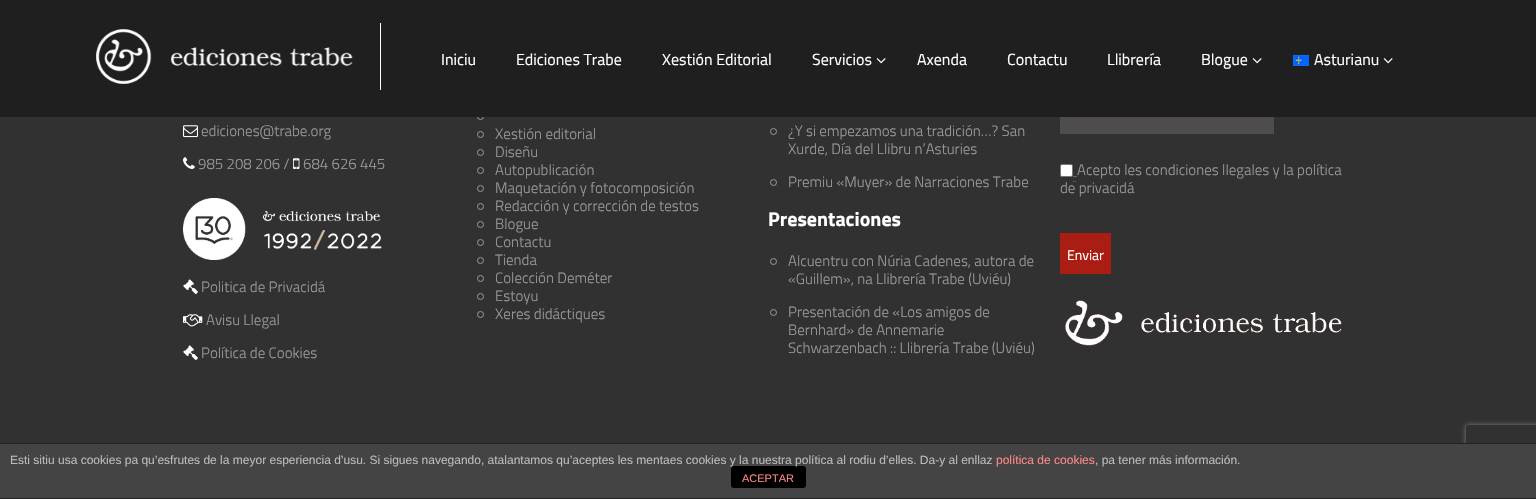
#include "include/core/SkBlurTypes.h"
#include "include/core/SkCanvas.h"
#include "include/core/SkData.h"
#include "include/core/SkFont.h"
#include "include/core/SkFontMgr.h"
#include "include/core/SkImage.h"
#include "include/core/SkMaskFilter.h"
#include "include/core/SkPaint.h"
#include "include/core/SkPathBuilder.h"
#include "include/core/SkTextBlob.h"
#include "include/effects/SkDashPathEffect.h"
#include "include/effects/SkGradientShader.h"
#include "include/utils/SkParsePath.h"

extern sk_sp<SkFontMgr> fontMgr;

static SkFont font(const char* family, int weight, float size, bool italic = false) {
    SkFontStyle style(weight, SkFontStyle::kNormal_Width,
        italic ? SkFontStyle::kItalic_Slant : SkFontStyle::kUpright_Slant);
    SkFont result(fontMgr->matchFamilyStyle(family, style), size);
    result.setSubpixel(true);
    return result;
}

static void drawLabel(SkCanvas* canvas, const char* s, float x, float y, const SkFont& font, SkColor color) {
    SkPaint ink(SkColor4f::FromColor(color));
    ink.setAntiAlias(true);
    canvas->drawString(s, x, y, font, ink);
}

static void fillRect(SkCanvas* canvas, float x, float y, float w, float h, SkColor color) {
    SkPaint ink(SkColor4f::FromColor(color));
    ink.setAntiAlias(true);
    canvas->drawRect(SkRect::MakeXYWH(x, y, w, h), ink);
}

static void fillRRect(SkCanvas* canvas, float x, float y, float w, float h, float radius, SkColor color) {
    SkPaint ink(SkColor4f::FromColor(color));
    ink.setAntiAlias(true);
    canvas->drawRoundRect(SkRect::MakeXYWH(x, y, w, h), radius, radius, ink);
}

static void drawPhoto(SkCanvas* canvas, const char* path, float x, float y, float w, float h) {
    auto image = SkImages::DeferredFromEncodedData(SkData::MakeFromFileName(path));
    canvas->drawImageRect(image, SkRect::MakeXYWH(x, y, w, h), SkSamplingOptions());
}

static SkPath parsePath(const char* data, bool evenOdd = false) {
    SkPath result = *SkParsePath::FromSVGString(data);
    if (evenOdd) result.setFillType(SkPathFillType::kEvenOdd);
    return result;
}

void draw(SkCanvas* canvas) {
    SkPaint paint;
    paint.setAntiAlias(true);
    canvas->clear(0xFF313131);
    paint.setStroke(true);
    paint.setStrokeWidth(1);
    paint.setColor(0xFF9B9A98);
    canvas->drawCircle(480.5f, 116.5f, 3, paint);
    fillRect(canvas, 0, 0, 1536, 117, 0xFF1F1F1F);
    fillRect(canvas, 380, 23, 1, 67, 0xFFFFFFFF);
    drawPhoto(canvas, "assets/img1.png", 96, 29, 257, 55);
    SkFont font1 = font("Titillium Web", 400, 16);
    drawLabel(canvas, "Iniciu", 441, 65, font1, 0xFFFFFFFF);
    drawLabel(canvas, "Ediciones Trabe", 516, 65, font1, 0xFFFFFFFF);
    drawLabel(canvas, "Xestión Editorial", 662, 65, font1, 0xFFFFFFFF);
    drawLabel(canvas, "Servicios", 812, 65, font1, 0xFFFFFFFF);
    drawPhoto(canvas, "assets/img2.png", 876, 58, 10, 6);
    drawLabel(canvas, "Axenda", 917, 65, font1, 0xFFFFFFFF);
    drawLabel(canvas, "Contactu", 1007, 65, font1, 0xFFFFFFFF);
    drawLabel(canvas, "Llibrería", 1107, 65, font1, 0xFFFFFFFF);
    drawLabel(canvas, "Blogue", 1201, 65, font1, 0xFFFFFFFF);
    drawPhoto(canvas, "assets/img2.png", 1252, 58, 10, 6);
    drawPhoto(canvas, "assets/img3.png", 1293, 55, 16, 11);
    drawLabel(canvas, "Asturianu", 1314, 65, font1, 0xFFFFFFFF);
    drawPhoto(canvas, "assets/img2.png", 1383, 58, 10, 6);
    drawPhoto(canvas, "assets/img4.png", 183, 125, 15, 13);
    SkFont font2 = font("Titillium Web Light", 300, 15);
    drawLabel(canvas, "ediciones@trabe.org", 201, 136, font2, 0xFF9B9A98);
    drawPhoto(canvas, "assets/img5.png", 183, 157, 12, 12);
    drawLabel(canvas, "985 208 206 /", 198, 169, font2, 0xFF9B9A98);
    drawPhoto(canvas, "assets/img6.png", 293, 158, 7, 11);
    drawLabel(canvas, "684 626 445", 303, 169, font2, 0xFF9B9A98);
    drawPhoto(canvas, "assets/img7.png", 183, 198, 199, 62);
    drawPhoto(canvas, "assets/img8.png", 183, 279, 15, 15);
    drawLabel(canvas, "Politica de Privacidá", 201, 292, font2, 0xFF9B9A98);
    drawPhoto(canvas, "assets/img9.png", 183, 314, 20, 13);
    drawLabel(canvas, "Avisu Llegal", 206, 325, font2, 0xFF9B9A98);
    drawPhoto(canvas, "assets/img8.png", 183, 345, 15, 15);
    drawLabel(canvas, "Política de Cookies", 201, 358, font2, 0xFF9B9A98);
    canvas->drawCircle(480.5f, 134.5f, 3, paint);
    drawLabel(canvas, "Xestión editorial", 495, 139, font2, 0xFF9B9A98);
    canvas->drawCircle(480.5f, 152.5f, 3, paint);
    drawLabel(canvas, "Diseñu", 495, 157, font2, 0xFF9B9A98);
    canvas->drawCircle(480.5f, 170.5f, 3, paint);
    drawLabel(canvas, "Autopublicación", 495, 175, font2, 0xFF9B9A98);
    canvas->drawCircle(480.5f, 188.5f, 3, paint);
    drawLabel(canvas, "Maquetación y fotocomposición", 495, 193, font2, 0xFF9B9A98);
    canvas->drawCircle(480.5f, 206.5f, 3, paint);
    drawLabel(canvas, "Redacción y corrección de testos", 495, 211, font2, 0xFF9B9A98);
    canvas->drawCircle(480.5f, 224.5f, 3, paint);
    drawLabel(canvas, "Blogue", 495, 229, font2, 0xFF9B9A98);
    canvas->drawCircle(480.5f, 242.5f, 3, paint);
    drawLabel(canvas, "Contactu", 495, 247, font2, 0xFF9B9A98);
    canvas->drawCircle(480.5f, 260.5f, 3, paint);
    drawLabel(canvas, "Tienda", 495, 265, font2, 0xFF9B9A98);
    canvas->drawCircle(480.5f, 278.5f, 3, paint);
    drawLabel(canvas, "Colección Deméter", 495, 283, font2, 0xFF9B9A98);
    canvas->drawCircle(480.5f, 296.5f, 3, paint);
    drawLabel(canvas, "Estoyu", 495, 301, font2, 0xFF9B9A98);
    canvas->drawCircle(480.5f, 314.5f, 3, paint);
    drawLabel(canvas, "Xeres didáctiques", 495, 319, font2, 0xFF9B9A98);
    canvas->drawCircle(773.5f, 131.5f, 3, paint);
    drawLabel(canvas, "¿Y si empezamos una tradición…? San", 788, 136, font2, 0xFF9B9A98);
    drawLabel(canvas, "Xurde, Día del Llibru n’Asturies", 788, 154, font2, 0xFF9B9A98);
    canvas->drawCircle(773.5f, 182.5f, 3, paint);
    drawLabel(canvas, "Premiu «Muyer» de Narraciones Trabe", 788, 187, font2, 0xFF9B9A98);
    SkFont font3 = font("Titillium Web", 700, 20);
    drawLabel(canvas, "Presentaciones", 768, 226, font3, 0xFFFFFFFF);
    canvas->drawCircle(773.5f, 261.5f, 3, paint);
    drawLabel(canvas, "Alcuentru con Núria Cadenes, autora de", 788, 266, font2, 0xFF9B9A98);
    drawLabel(canvas, "«Guillem», na Llibrería Trabe (Uviéu)", 788, 284, font2, 0xFF9B9A98);
    canvas->drawCircle(773.5f, 312.5f, 3, paint);
    drawLabel(canvas, "Presentación de «Los amigos de", 788, 317, font2, 0xFF9B9A98);
    drawLabel(canvas, "Bernhard» de Annemarie", 788, 335, font2, 0xFF9B9A98);
    drawLabel(canvas, "Schwarzenbach :: Llibrería Trabe (Uviéu)", 788, 353, font2, 0xFF9B9A98);
    fillRect(canvas, 1060, 117, 214, 17, 0xFF4E4C4C);
    paint.setStroke(false);
    paint.setColor(0xFFFFFFFF);
    canvas->drawRoundRect(SkRect::MakeXYWH(1060.5f, 164.5f, 12, 12), 1.5f, 1.5f, paint);
    paint.setStroke(true);
    paint.setColor(0xFF767676);
    canvas->drawRoundRect(SkRect::MakeXYWH(1060.5f, 164.5f, 12, 12), 1.5f, 1.5f, paint);
    paint.setColor(0xFF9B9A98);
    canvas->drawPath(parsePath("M1073.5 176.5H1074.5M1075.5 176.5H1076.5"), paint);
    drawLabel(canvas, "Acepto les condiciones llegales y la política", 1077, 175, font2, 0xFF9B9A98);
    paint.setColor(0xFF666666);
    canvas->drawPath(parsePath("M1073 181.5H1074M1075 181.5H1076"), paint);
    drawLabel(canvas, "de privacidá", 1060, 193, font2, 0xFF9B9A98);
    fillRect(canvas, 1060, 233, 51, 41, 0xFFAA1D13);
    SkFont font4 = font("Titillium Web", 400, 14);
    drawLabel(canvas, "Enviar", 1067, 260, font4, 0xFFFFFFFF);
    drawPhoto(canvas, "assets/img10.png", 1065, 300, 277, 46);
    canvas->save();
    canvas->clipPath(parsePath("M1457 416H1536V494H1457ZM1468 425H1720C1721 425 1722 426 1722 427V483C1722 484 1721 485 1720 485H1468C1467 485 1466 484 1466 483V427C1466 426 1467 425 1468 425Z", true), true);
    paint.setStroke(false);
    paint.setColor(0xFF808080);
    paint.setMaskFilter(SkMaskFilter::MakeBlur(kNormal_SkBlurStyle, 2.5f));
    canvas->drawRoundRect(SkRect::MakeXYWH(1466, 425, 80, 60), 2, 2, paint);
    paint.setMaskFilter(nullptr);
    canvas->restore();
    fillRect(canvas, 0, 444, 1536, 54, 0xFF444444);
    fillRect(canvas, 0, 443, 1536, 1, 0xFF222222);
    fillRect(canvas, 0, 498, 1536, 1, 0xFF222222);
    fillRRect(canvas, 731, 466, 75, 22, 3, 0xFF000000);
    SkFont font5 = font("Liberation Sans", 400, 12);
    drawLabel(canvas, "Esti sitiu usa cookies pa qu’esfrutes de la meyor esperiencia d’usu. Si sigues navegando, atalantamos qu’aceptes les mentaes cookies y la nuestra política al rodiu d’elles. Da-y al enllaz", 10, 464, font5, 0xFFBBBBBB);
    drawLabel(canvas, "política de cookies", 996, 464, font5, 0xFFFF8888);
    drawLabel(canvas, ", pa tener más información.", 1095, 464, font5, 0xFFBBBBBB);
    SkFont font6 = font("Liberation Sans", 400, 11);
    drawLabel(canvas, "ACEPTAR", 742, 482, font6, 0xFFFF8888);
}
